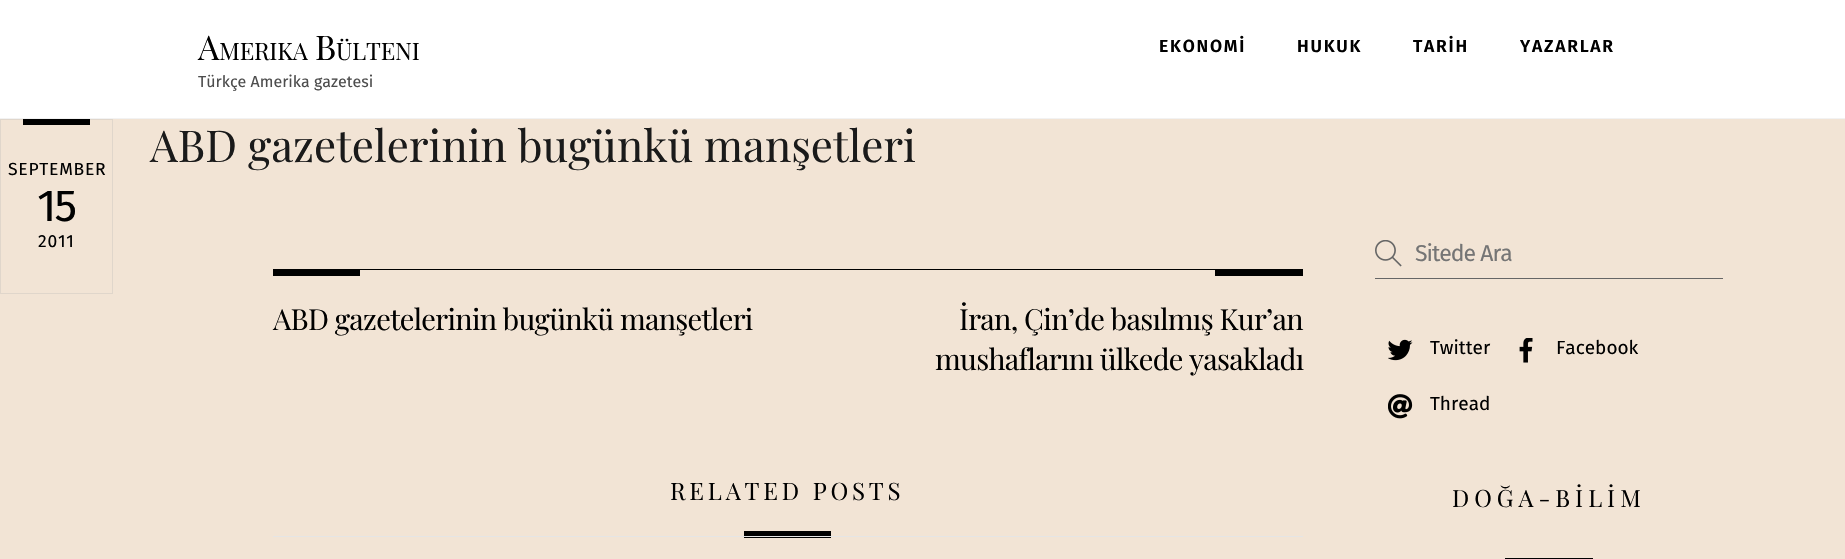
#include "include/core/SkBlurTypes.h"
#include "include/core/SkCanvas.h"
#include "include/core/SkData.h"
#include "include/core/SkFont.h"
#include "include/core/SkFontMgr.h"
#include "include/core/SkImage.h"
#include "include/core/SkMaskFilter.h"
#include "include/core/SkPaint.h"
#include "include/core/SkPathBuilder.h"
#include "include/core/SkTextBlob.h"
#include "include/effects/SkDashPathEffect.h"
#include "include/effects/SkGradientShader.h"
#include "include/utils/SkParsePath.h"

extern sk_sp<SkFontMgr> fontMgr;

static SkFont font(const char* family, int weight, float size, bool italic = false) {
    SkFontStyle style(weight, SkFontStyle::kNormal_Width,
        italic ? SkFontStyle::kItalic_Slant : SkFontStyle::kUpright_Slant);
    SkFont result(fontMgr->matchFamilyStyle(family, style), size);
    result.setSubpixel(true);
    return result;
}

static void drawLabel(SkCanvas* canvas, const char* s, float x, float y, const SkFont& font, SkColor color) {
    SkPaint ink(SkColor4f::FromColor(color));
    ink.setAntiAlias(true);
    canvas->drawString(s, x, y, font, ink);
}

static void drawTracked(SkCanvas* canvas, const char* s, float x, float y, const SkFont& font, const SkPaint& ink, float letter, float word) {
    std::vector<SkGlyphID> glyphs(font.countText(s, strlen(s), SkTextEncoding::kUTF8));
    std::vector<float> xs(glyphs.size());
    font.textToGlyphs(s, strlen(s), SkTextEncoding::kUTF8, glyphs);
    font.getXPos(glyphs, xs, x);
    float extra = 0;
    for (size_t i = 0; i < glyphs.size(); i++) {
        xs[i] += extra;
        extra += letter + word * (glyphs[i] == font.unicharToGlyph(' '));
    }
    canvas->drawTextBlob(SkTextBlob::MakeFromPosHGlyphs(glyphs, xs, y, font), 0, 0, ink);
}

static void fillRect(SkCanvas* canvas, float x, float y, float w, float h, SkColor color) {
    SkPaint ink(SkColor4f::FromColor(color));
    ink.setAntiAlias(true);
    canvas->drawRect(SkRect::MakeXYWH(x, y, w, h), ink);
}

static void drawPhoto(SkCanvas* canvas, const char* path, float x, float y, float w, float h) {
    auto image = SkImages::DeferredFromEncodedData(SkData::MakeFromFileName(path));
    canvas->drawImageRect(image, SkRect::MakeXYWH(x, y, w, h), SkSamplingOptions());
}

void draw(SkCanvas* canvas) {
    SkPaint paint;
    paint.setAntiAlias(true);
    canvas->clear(0xFFF2E4D5);
    fillRect(canvas, 0, 0, 1845, 118, 0xFFFFFFFF);
    fillRect(canvas, 0, 118, 1845, 1, 0xFFF2F2F2);
    SkFont font1 = font("Playfair Display", 400, 34);
    paint.setColor(0xFF000000);
    drawTracked(canvas, "A", 198, 60, font1, paint, -0.25f, 0);
    SkFont font2 = font("Playfair Display", 400, 24);
    drawTracked(canvas, "MERIKA", 219, 60, font2, paint, -0.25f, 0);
    drawTracked(canvas, "B", 315, 60, font1, paint, -0.25f, 0);
    drawTracked(canvas, "ÜLTENI", 336, 60, font2, paint, -0.25f, 0);
    SkFont font3 = font("Fira Sans", 400, 16);
    drawLabel(canvas, "Türkçe Amerika gazetesi", 198, 87, font3, 0xFF4D4D4D);
    SkFont font4 = font("Fira Sans", 600, 17.5f);
    drawTracked(canvas, "EKONOMİ", 1159, 52, font4, paint, 1.75f, 0);
    drawTracked(canvas, "HUKUK", 1297, 52, font4, paint, 1.75f, 0);
    drawTracked(canvas, "TARİH", 1413, 52, font4, paint, 1.75f, 0);
    drawTracked(canvas, "YAZARLAR", 1520, 52, font4, paint, 1.75f, 0);
    SkFont font5 = font("Playfair Display", 400, 44);
    drawLabel(canvas, "ABD gazetelerinin bugünkü manşetleri", 150, 162, font5, 0xFF1A1A1A);
    paint.setStroke(true);
    paint.setStrokeWidth(1);
    paint.setColor(0xFFE0D6CB);
    canvas->drawRect(SkRect::MakeXYWH(0.5f, 119.5f, 112, 174), paint);
    fillRect(canvas, 23, 119, 67, 6, 0xFF000000);
    SkFont font6 = font("Fira Sans", 400, 17.5f);
    paint.setStroke(false);
    paint.setColor(0xFF000000);
    drawTracked(canvas, "SEPTEMBER", 8, 175, font6, paint, 0.75f, 0);
    SkFont font7 = font("Fira Sans", 400, 45);
    drawTracked(canvas, "15", 37, 221, font7, paint, -2, 0);
    drawTracked(canvas, "2011", 38, 247, font6, paint, 0.75f, 0);
    fillRect(canvas, 273, 269, 1030, 1, 0xFF000000);
    fillRect(canvas, 273, 270, 87, 6, 0xFF000000);
    SkFont font8 = font("Playfair Display", 400, 29);
    drawTracked(canvas, "ABD gazetelerinin bugünkü manşetleri", 273, 330, font8, paint, -0.7f, 0);
    fillRect(canvas, 1215, 270, 88, 6, 0xFF000000);
    drawTracked(canvas, "İran, Çin’de basılmış Kur’an", 959, 330, font8, paint, -0.7f, 0);
    drawTracked(canvas, "mushaflarını ülkede yasakladı", 935, 370, font8, paint, -0.7f, 0);
    drawTracked(canvas, "RELATED POSTS", 670, 500, font2, paint, 3.8f, 0);
    fillRect(canvas, 744, 531, 87, 7, 0xFF000000);
    fillRect(canvas, 273, 536, 1030, 1, 0xFFE5E5E5);
    fillRect(canvas, 1375, 278, 348, 1, 0xFF666666);
    drawPhoto(canvas, "assets/img1.png", 1375, 240, 27, 27);
    SkFont font9 = font("Fira Sans", 400, 23);
    paint.setColor(0xFF757575);
    drawTracked(canvas, "Sitede Ara", 1415, 261, font9, paint, -1, 0);
    drawPhoto(canvas, "assets/img2.png", 1388, 339, 25, 22);
    SkFont font10 = font("Fira Sans", 400, 19);
    drawLabel(canvas, "Twitter", 1430, 354, font10, 0xFF000000);
    drawPhoto(canvas, "assets/img3.png", 1519, 338, 14, 25);
    drawLabel(canvas, "Facebook", 1556, 354, font10, 0xFF000000);
    drawPhoto(canvas, "assets/img4.png", 1388, 394, 25, 25);
    drawLabel(canvas, "Thread", 1430, 410, font10, 0xFF000000);
    SkFont font11 = font("Playfair Display", 400, 23.75f);
    paint.setColor(0xFF000000);
    drawTracked(canvas, "DOĞA-BİLİM", 1452, 507, font11, paint, 5, 0);
    fillRect(canvas, 1505, 558, 88, 1, 0xFF000000);
}
